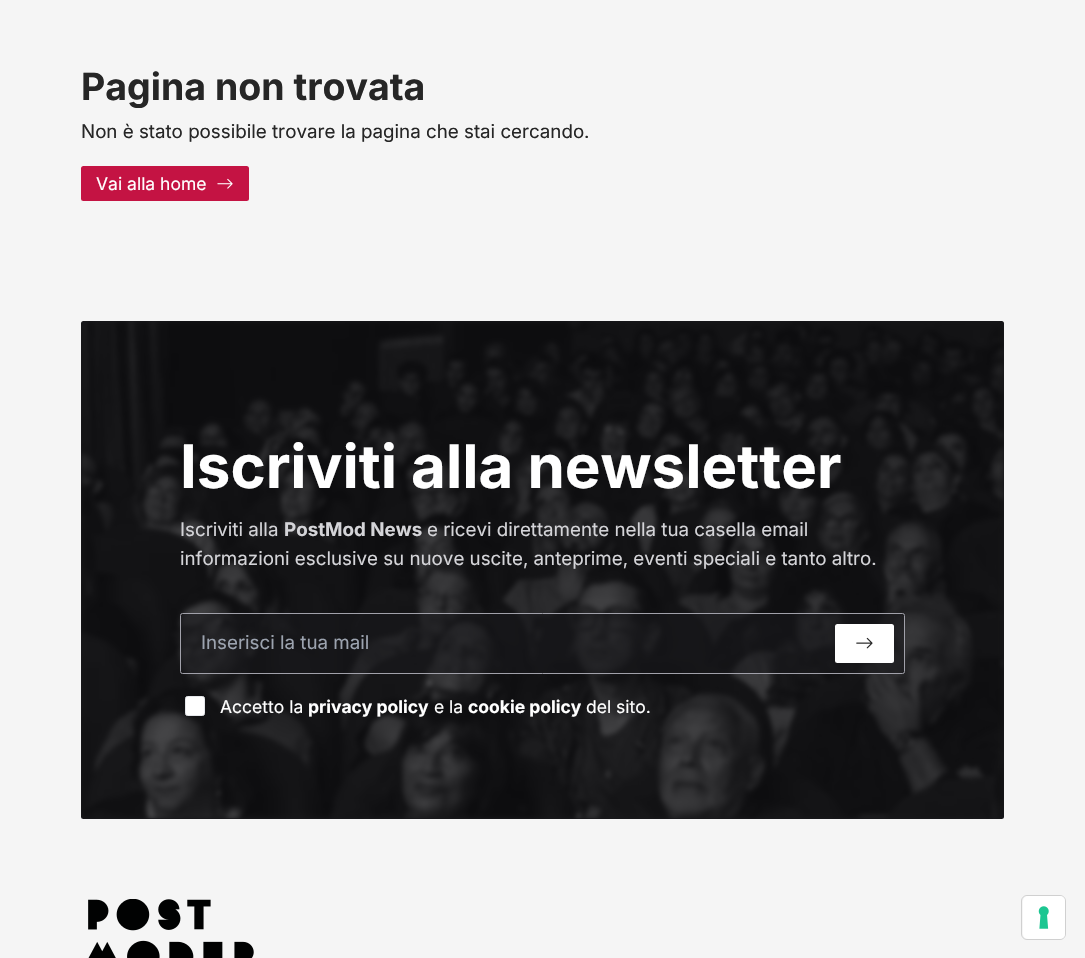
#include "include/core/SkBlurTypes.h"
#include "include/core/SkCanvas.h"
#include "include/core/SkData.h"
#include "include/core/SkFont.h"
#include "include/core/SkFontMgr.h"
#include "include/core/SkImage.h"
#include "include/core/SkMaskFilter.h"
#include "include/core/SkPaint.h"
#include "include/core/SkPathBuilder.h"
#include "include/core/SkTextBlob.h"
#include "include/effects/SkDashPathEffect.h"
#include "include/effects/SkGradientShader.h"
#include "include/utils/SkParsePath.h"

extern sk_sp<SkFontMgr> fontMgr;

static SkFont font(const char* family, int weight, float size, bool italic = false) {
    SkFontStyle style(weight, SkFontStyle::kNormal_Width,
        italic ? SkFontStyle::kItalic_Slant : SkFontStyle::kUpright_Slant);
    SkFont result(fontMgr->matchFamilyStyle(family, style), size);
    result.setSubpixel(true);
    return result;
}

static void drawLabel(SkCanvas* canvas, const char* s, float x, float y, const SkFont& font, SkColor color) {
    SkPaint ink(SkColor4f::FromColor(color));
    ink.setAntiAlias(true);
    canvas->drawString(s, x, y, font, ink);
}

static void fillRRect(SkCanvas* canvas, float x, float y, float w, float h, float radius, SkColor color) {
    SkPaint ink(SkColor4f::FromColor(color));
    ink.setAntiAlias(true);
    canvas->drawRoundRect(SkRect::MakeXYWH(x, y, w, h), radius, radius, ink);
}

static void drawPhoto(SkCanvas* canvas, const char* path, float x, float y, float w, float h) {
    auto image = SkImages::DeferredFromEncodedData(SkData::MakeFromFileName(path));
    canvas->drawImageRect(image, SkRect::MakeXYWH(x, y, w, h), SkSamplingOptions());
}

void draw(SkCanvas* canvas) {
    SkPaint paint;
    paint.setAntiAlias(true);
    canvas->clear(0xFFF5F5F5);
    SkFont font1 = font("Inter", 700, 37.5f);
    drawLabel(canvas, "Pagina non trovata", 81, 100, font1, 0xFF262626);
    SkFont font2 = font("Inter", 400, 18.75f);
    drawLabel(canvas, "Non è stato possibile trovare la pagina che stai cercando.", 81, 138, font2, 0xFF262626);
    fillRRect(canvas, 81, 166, 168, 35, 2.5f, 0xFFC41343);
    SkFont font3 = font("Inter", 400, 17.5f);
    drawLabel(canvas, "Vai alla home", 96, 190, font3, 0xFFFFFFFF);
    drawPhoto(canvas, "assets/img1.png", 217, 178, 16, 11);
    fillRRect(canvas, 81, 321, 923, 498, 2.5f, 0xFF18181B);
    drawPhoto(canvas, "assets/img2.png", 81, 321, 923, 498);
    SkFont font4 = font("Inter", 700, 60);
    drawLabel(canvas, "Iscriviti alla newsletter", 180, 488, font4, 0xFFFFFFFF);
    drawLabel(canvas, "Iscriviti alla", 180, 536, font2, 0xFFD4D4D8);
    SkFont font5 = font("Inter", 700, 18.75f);
    drawLabel(canvas, "PostMod News", 284, 536, font5, 0xFFD4D4D8);
    drawLabel(canvas, "e ricevi direttamente nella tua casella email", 427, 536, font2, 0xFFD4D4D8);
    drawLabel(canvas, "informazioni esclusive su nuove uscite, anteprime, eventi speciali e tanto altro.", 180, 565, font2, 0xFFD4D4D8);
    paint.setColor(0x9918181B);
    canvas->drawRoundRect(SkRect::MakeXYWH(180.5f, 613.5f, 724, 60), 2, 2, paint);
    paint.setStroke(true);
    paint.setStrokeWidth(1);
    paint.setColor(0xFFA1A1AA);
    canvas->drawRoundRect(SkRect::MakeXYWH(180.5f, 613.5f, 724, 60), 2, 2, paint);
    drawLabel(canvas, "Inserisci la tua mail", 201, 649, font2, 0xFF9CA3AF);
    fillRRect(canvas, 835, 624, 59, 39, 2.5f, 0xFFFFFFFF);
    drawPhoto(canvas, "assets/img3.png", 856, 637, 17, 12);
    paint.setStroke(false);
    paint.setColor(0xFFFFFFFF);
    canvas->drawRoundRect(SkRect::MakeXYWH(185.5f, 696.5f, 19, 19), 2, 2, paint);
    paint.setStroke(true);
    paint.setColor(0xFFE5E7EB);
    canvas->drawRoundRect(SkRect::MakeXYWH(185.5f, 696.5f, 19, 19), 2, 2, paint);
    drawLabel(canvas, "Accetto la", 220, 713, font3, 0xFFFFFFFF);
    SkFont font6 = font("Inter", 700, 17.5f);
    drawLabel(canvas, "privacy policy", 308, 713, font6, 0xFFFFFFFF);
    drawLabel(canvas, "e la", 434, 713, font3, 0xFFFFFFFF);
    drawLabel(canvas, "cookie policy", 468, 713, font6, 0xFFFFFFFF);
    drawLabel(canvas, "del sito.", 586, 713, font3, 0xFFFFFFFF);
    drawPhoto(canvas, "assets/img4.png", 88, 899, 166, 59);
    paint.setColor(0xFFD0D0D0);
    canvas->drawRoundRect(SkRect::MakeXYWH(1021.5f, 895.5f, 44, 44), 5.5f, 5.5f, paint);
    fillRRect(canvas, 1023, 896, 42, 43, 5, 0xFFFFFFFF);
    drawPhoto(canvas, "assets/img5.png", 1038, 906, 11, 23);
}
